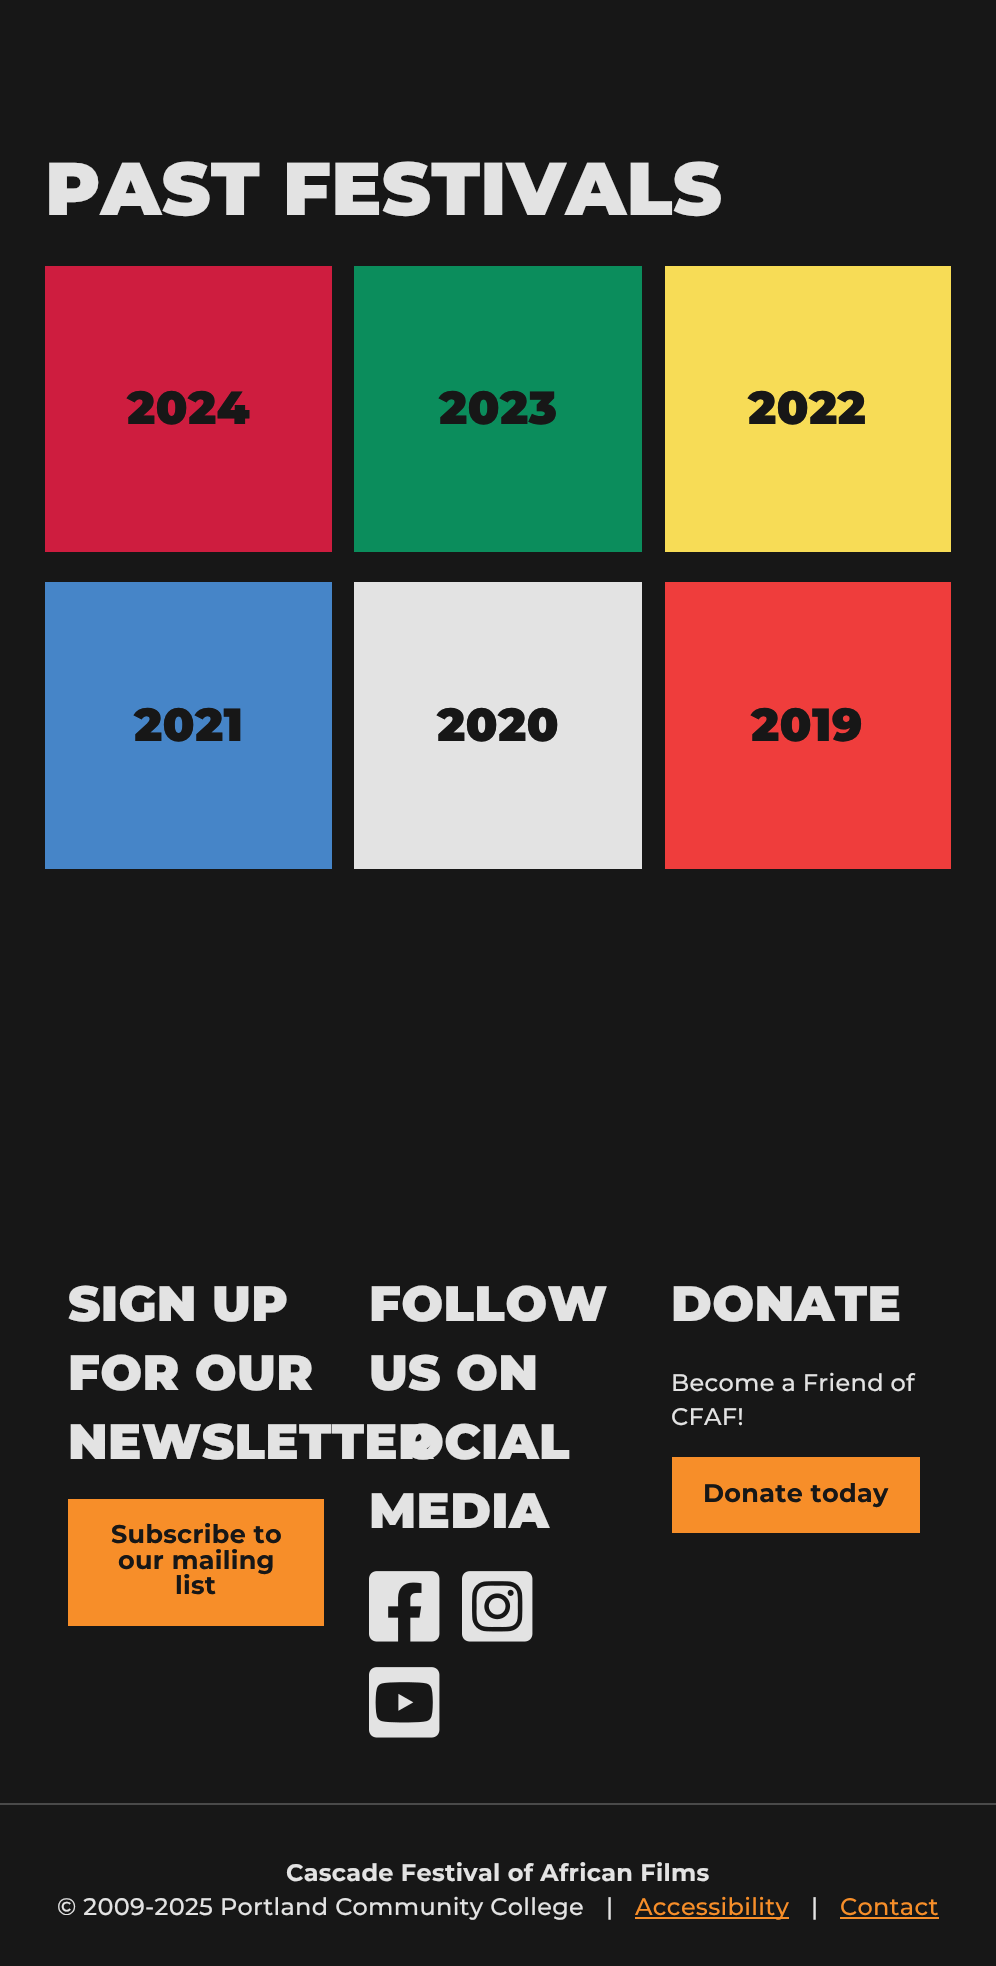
#include "include/core/SkBlurTypes.h"
#include "include/core/SkCanvas.h"
#include "include/core/SkData.h"
#include "include/core/SkFont.h"
#include "include/core/SkFontMgr.h"
#include "include/core/SkImage.h"
#include "include/core/SkMaskFilter.h"
#include "include/core/SkPaint.h"
#include "include/core/SkPathBuilder.h"
#include "include/core/SkTextBlob.h"
#include "include/effects/SkDashPathEffect.h"
#include "include/effects/SkGradientShader.h"
#include "include/utils/SkParsePath.h"

extern sk_sp<SkFontMgr> fontMgr;

static SkFont font(const char* family, int weight, float size, bool italic = false) {
    SkFontStyle style(weight, SkFontStyle::kNormal_Width,
        italic ? SkFontStyle::kItalic_Slant : SkFontStyle::kUpright_Slant);
    SkFont result(fontMgr->matchFamilyStyle(family, style), size);
    result.setSubpixel(true);
    return result;
}

static void drawTracked(SkCanvas* canvas, const char* s, float x, float y, const SkFont& font, const SkPaint& ink, float letter, float word) {
    std::vector<SkGlyphID> glyphs(font.countText(s, strlen(s), SkTextEncoding::kUTF8));
    std::vector<float> xs(glyphs.size());
    font.textToGlyphs(s, strlen(s), SkTextEncoding::kUTF8, glyphs);
    font.getXPos(glyphs, xs, x);
    float extra = 0;
    for (size_t i = 0; i < glyphs.size(); i++) {
        xs[i] += extra;
        extra += letter + word * (glyphs[i] == font.unicharToGlyph(' '));
    }
    canvas->drawTextBlob(SkTextBlob::MakeFromPosHGlyphs(glyphs, xs, y, font), 0, 0, ink);
}

static void fillRect(SkCanvas* canvas, float x, float y, float w, float h, SkColor color) {
    SkPaint ink(SkColor4f::FromColor(color));
    ink.setAntiAlias(true);
    canvas->drawRect(SkRect::MakeXYWH(x, y, w, h), ink);
}

static void drawPhoto(SkCanvas* canvas, const char* path, float x, float y, float w, float h) {
    auto image = SkImages::DeferredFromEncodedData(SkData::MakeFromFileName(path));
    canvas->drawImageRect(image, SkRect::MakeXYWH(x, y, w, h), SkSamplingOptions());
}

void draw(SkCanvas* canvas) {
    SkPaint paint;
    paint.setAntiAlias(true);
    canvas->clear(0xFF171717);
    SkFont font1 = font("Montserrat", 900, 74.75f);
    paint.setColor(0xFFE3E3E3);
    drawTracked(canvas, "PAST FESTIVALS", 45, 215, font1, paint, 0.3f, 0);
    fillRect(canvas, 45, 266, 287, 286, 0xFFCE1D3F);
    SkFont font2 = font("Montserrat", 900, 46.5f);
    paint.setColor(0xFF171717);
    drawTracked(canvas, "2024", 127, 424, font2, paint, 0.3f, 0);
    fillRect(canvas, 354, 266, 288, 286, 0xFF0B8D5C);
    drawTracked(canvas, "2023", 439, 424, font2, paint, 0.3f, 0);
    fillRect(canvas, 665, 266, 286, 286, 0xFFF7DC56);
    drawTracked(canvas, "2022", 748, 424, font2, paint, 0.3f, 0);
    fillRect(canvas, 45, 582, 287, 287, 0xFF4685C8);
    drawTracked(canvas, "2021", 134, 741, font2, paint, 0.3f, 0);
    fillRect(canvas, 354, 582, 288, 287, 0xFFE3E3E3);
    drawTracked(canvas, "2020", 437, 741, font2, paint, 0.3f, 0);
    fillRect(canvas, 665, 582, 286, 287, 0xFFEF3D3C);
    drawTracked(canvas, "2019", 751, 741, font2, paint, 0.3f, 0);
    SkFont font3 = font("Montserrat", 900, 49.5f);
    paint.setColor(0xFFE3E3E3);
    drawTracked(canvas, "SIGN UP", 68, 1321, font3, paint, 0.3f, 0);
    drawTracked(canvas, "FOR OUR", 68, 1390, font3, paint, 0.3f, 0);
    drawTracked(canvas, "NEWSLETTER", 68, 1459, font3, paint, 0.3f, 0);
    fillRect(canvas, 68, 1499, 256, 127, 0xFFF78E29);
    SkFont font4 = font("Montserrat", 700, 25.5f);
    paint.setColor(0xFF171717);
    drawTracked(canvas, "Subscribe to", 111, 1543, font4, paint, 0.3f, 0);
    drawTracked(canvas, "our mailing", 118, 1569, font4, paint, 0.3f, 0);
    drawTracked(canvas, "list", 175, 1594, font4, paint, 0.3f, 0);
    paint.setColor(0xFFE3E3E3);
    drawTracked(canvas, "FOLLOW", 369, 1321, font3, paint, 0.3f, 0);
    drawTracked(canvas, "US ON", 369, 1390, font3, paint, 0.3f, 0);
    drawTracked(canvas, "OCIAL", 402, 1459, font3, paint, 0.3f, 0);
    drawTracked(canvas, "MEDIA", 369, 1528, font3, paint, 0.3f, 0);
    drawPhoto(canvas, "assets/img1.png", 369, 1571, 71, 71);
    drawPhoto(canvas, "assets/img2.png", 462, 1571, 71, 71);
    drawPhoto(canvas, "assets/img3.png", 369, 1667, 71, 71);
    drawTracked(canvas, "DONATE", 671, 1321, font3, paint, 0.3f, 0);
    SkFont font5 = font("Montserrat", 500, 24);
    drawTracked(canvas, "Become a Friend of", 671, 1391, font5, paint, 0.3f, 0);
    drawTracked(canvas, "CFAF!", 671, 1425, font5, paint, 0.3f, 0);
    fillRect(canvas, 672, 1457, 248, 76, 0xFFF78E29);
    paint.setColor(0xFF171717);
    drawTracked(canvas, "Donate today", 703, 1502, font4, paint, 0.3f, 0);
    fillRect(canvas, 0, 1803, 996, 2, 0xFF4A4A4A);
    SkFont font6 = font("Montserrat", 700, 24);
    paint.setColor(0xFFE3E3E3);
    drawTracked(canvas, "Cascade Festival of African Films", 286, 1881, font6, paint, 0.3f, 0);
    drawTracked(canvas, "© 2009-2025 Portland Community College", 57, 1915, font5, paint, 0.3f, 0);
    drawTracked(canvas, "|", 606, 1915, font5, paint, 0.3f, 0);
    fillRect(canvas, 635, 1917, 154, 2, 0xFFF78E29);
    paint.setColor(0xFFF78E29);
    drawTracked(canvas, "Accessibility", 635, 1915, font5, paint, 0.3f, 0);
    paint.setColor(0xFFE3E3E3);
    drawTracked(canvas, "|", 811, 1915, font5, paint, 0.3f, 0);
    paint.setColor(0xFFF78E29);
    drawTracked(canvas, "Contact", 840, 1915, font5, paint, 0.3f, 0);
    fillRect(canvas, 840, 1917, 99, 2, 0xFFF78E29);
}
